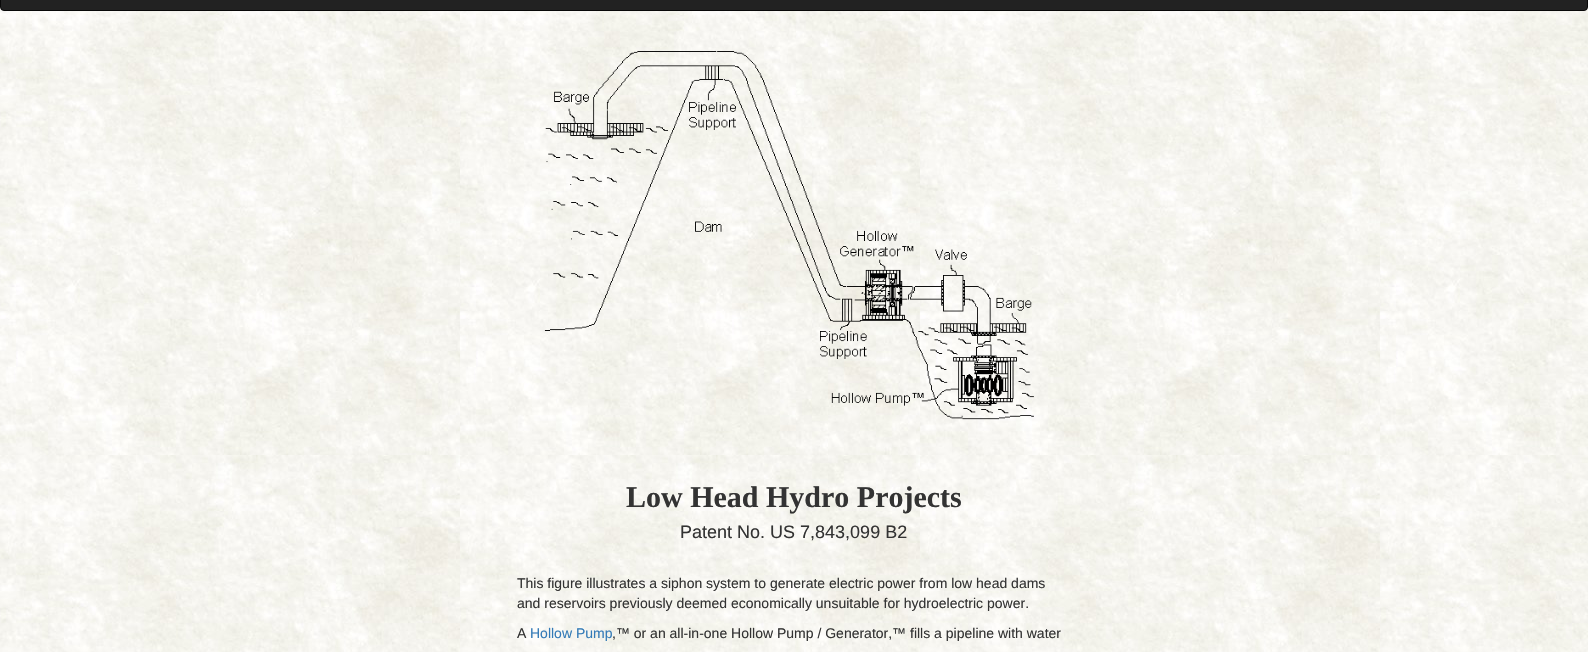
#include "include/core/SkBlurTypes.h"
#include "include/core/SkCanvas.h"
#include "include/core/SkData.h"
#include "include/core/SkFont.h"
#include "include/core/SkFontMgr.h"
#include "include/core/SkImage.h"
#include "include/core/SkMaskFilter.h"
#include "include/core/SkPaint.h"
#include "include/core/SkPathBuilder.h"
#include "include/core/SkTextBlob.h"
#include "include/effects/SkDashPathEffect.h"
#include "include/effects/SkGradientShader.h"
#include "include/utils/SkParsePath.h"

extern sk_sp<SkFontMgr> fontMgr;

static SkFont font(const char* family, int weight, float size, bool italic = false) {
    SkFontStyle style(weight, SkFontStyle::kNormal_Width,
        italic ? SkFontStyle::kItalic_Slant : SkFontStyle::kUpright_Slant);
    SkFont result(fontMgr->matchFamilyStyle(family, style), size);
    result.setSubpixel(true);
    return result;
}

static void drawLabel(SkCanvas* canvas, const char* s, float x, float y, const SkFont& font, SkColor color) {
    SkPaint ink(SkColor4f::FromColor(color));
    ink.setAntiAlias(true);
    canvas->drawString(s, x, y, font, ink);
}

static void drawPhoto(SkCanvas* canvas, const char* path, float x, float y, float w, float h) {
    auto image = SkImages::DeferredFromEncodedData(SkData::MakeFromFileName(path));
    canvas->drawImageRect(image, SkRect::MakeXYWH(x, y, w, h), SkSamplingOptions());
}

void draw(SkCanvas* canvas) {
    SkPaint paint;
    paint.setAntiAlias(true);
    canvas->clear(0xFFFFFFFF);
    drawPhoto(canvas, "assets/img1.png", 0, 7, 1588, 645);
    paint.setColor(0xFF222222);
    canvas->drawRoundRect(SkRect::MakeXYWH(0.5f, -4.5f, 1587, 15), 3.5f, 3.5f, paint);
    paint.setStroke(true);
    paint.setStrokeWidth(1);
    paint.setColor(0xFF080808);
    canvas->drawRoundRect(SkRect::MakeXYWH(0.5f, -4.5f, 1587, 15), 3.5f, 3.5f, paint);
    drawPhoto(canvas, "assets/img2.png", 544, 51, 490, 369);
    SkFont font1 = font("Liberation Serif", 700, 30);
    drawLabel(canvas, "Low Head Hydro Projects", 626, 507, font1, 0xFF333333);
    SkFont font2 = font("Liberation Sans", 400, 18);
    drawLabel(canvas, "Patent No. US 7,843,099 B2", 680, 538, font2, 0xFF333333);
    SkFont font3 = font("Liberation Sans", 400, 14);
    drawLabel(canvas, "This figure illustrates a siphon system to generate electric power from low head dams", 517, 588, font3, 0xFF333333);
    drawLabel(canvas, "and reservoirs previously deemed economically unsuitable for hydroelectric power.", 517, 608, font3, 0xFF333333);
    drawLabel(canvas, "A", 517, 638, font3, 0xFF333333);
    drawLabel(canvas, "Hollow Pump", 530, 638, font3, 0xFF337AB7);
    drawLabel(canvas, ",™ or an all-in-one Hollow Pump / Generator,™ fills a pipeline with water", 612, 638, font3, 0xFF333333);
}
